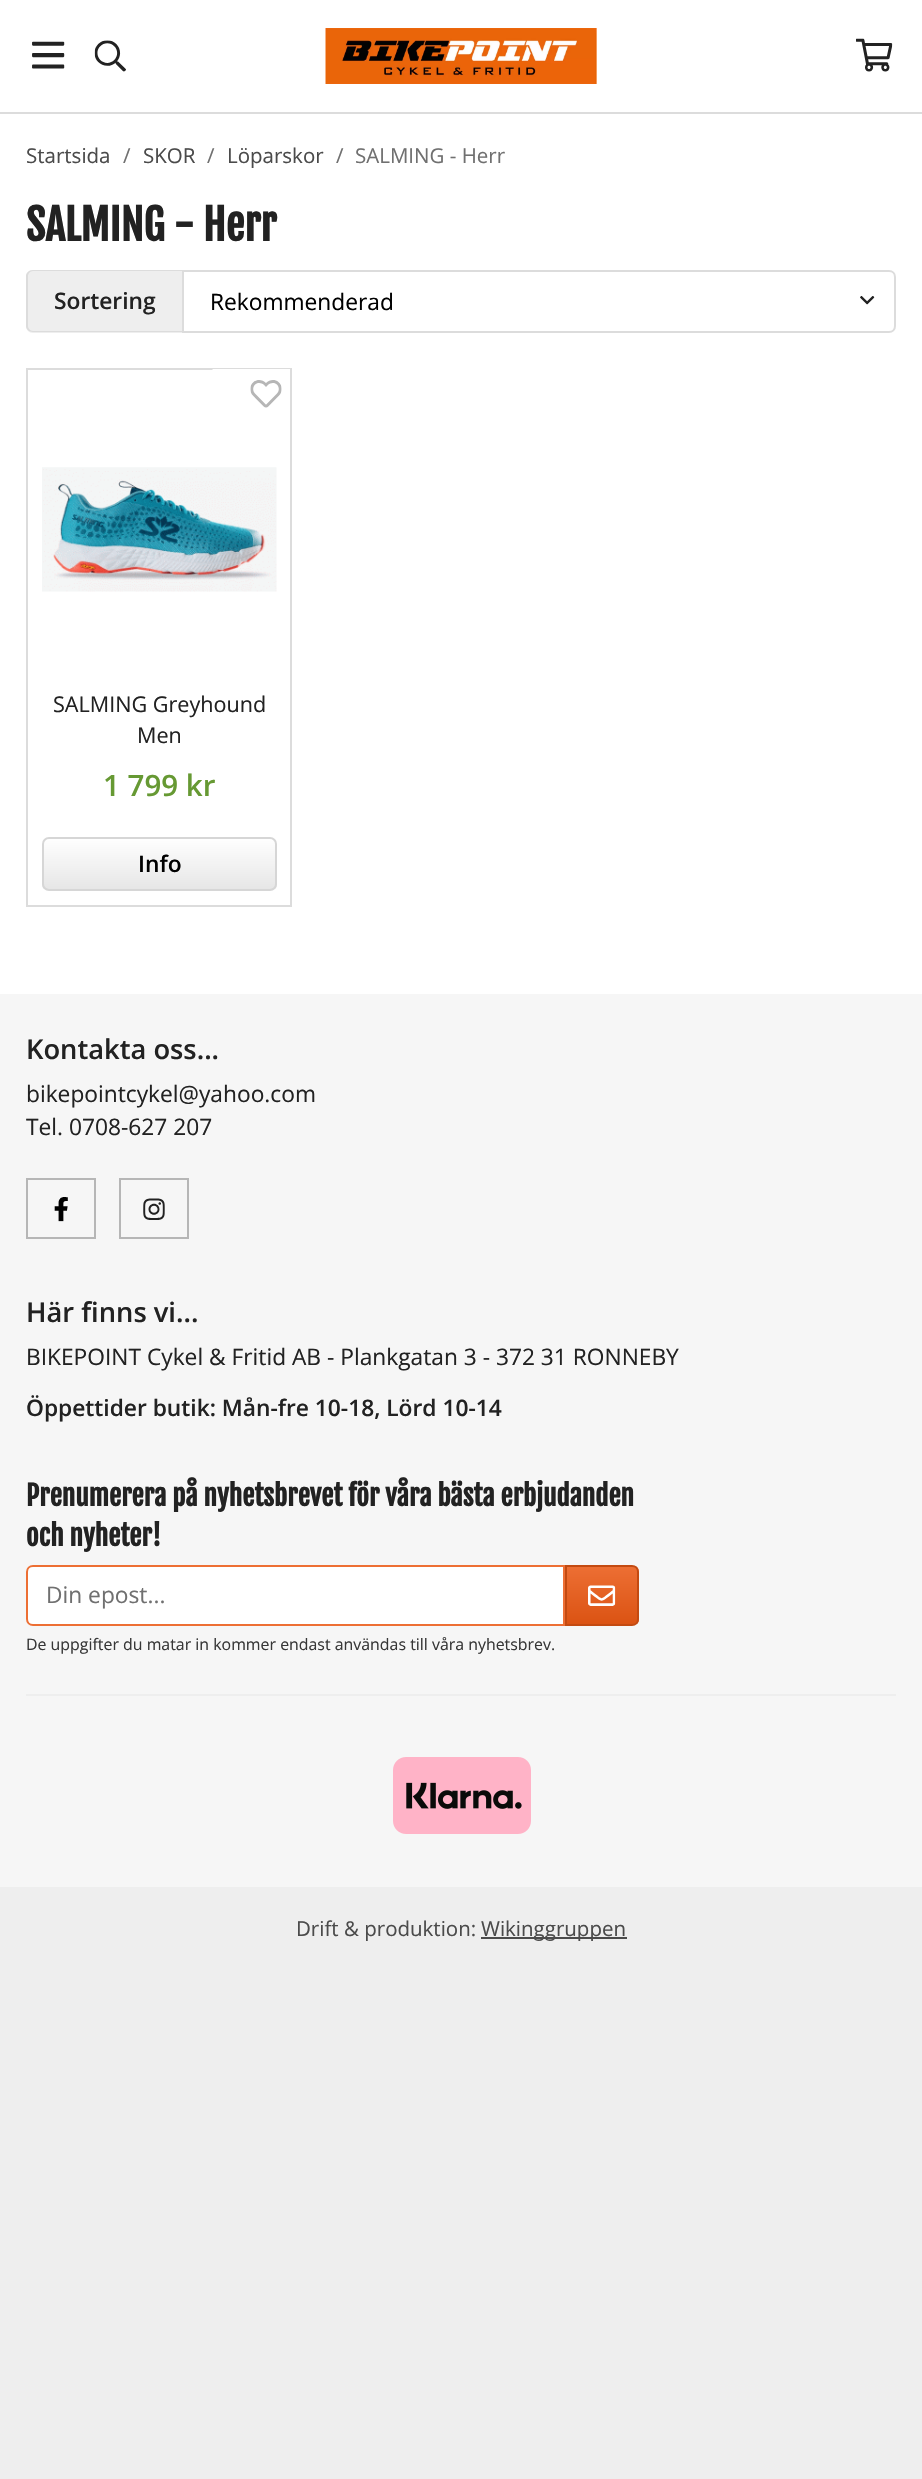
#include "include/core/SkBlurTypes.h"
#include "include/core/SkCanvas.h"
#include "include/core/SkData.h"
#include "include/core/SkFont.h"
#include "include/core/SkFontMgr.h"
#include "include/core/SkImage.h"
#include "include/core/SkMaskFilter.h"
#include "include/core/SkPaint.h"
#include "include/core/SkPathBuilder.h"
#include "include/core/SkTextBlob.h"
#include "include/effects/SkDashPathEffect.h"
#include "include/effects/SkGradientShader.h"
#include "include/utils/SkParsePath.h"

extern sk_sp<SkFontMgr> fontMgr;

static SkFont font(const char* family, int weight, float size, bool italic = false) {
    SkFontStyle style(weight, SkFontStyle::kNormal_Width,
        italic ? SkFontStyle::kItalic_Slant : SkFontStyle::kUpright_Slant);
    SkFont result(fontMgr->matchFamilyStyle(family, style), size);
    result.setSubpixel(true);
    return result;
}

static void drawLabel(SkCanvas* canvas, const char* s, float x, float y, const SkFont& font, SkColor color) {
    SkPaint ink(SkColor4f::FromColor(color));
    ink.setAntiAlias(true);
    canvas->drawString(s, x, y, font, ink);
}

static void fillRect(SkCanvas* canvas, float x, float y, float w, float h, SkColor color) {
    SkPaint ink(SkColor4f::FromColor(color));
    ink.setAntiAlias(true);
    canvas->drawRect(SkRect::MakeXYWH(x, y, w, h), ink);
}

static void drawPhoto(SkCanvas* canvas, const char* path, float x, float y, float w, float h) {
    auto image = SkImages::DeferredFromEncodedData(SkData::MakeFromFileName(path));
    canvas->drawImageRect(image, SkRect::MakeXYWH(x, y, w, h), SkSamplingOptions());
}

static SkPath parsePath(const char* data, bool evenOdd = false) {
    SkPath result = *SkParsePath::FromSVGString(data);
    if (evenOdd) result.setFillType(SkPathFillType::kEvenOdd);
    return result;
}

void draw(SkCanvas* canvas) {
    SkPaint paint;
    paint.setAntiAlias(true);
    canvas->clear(0xFFEEEEEE);
    fillRect(canvas, 0, 0, 922, 112, 0xFFFFFFFF);
    fillRect(canvas, 0, 112, 922, 2, 0xFFDCDCDC);
    drawPhoto(canvas, "assets/img1.png", 32, 41, 33, 28);
    drawPhoto(canvas, "assets/img2.png", 94, 40, 32, 32);
    drawPhoto(canvas, "assets/img3.png", 325, 28, 272, 56);
    drawPhoto(canvas, "assets/img4.png", 856, 38, 37, 34);
    fillRect(canvas, 0, 114, 922, 880, 0xFFFFFFFF);
    SkFont font1 = font("Open Sans", 400, 20.5f);
    drawLabel(canvas, "Startsida", 26, 163, font1, 0xFF4B4B4B);
    drawLabel(canvas, "/", 123, 163, font1, 0xFF707070);
    drawLabel(canvas, "SKOR", 143, 163, font1, 0xFF4B4B4B);
    drawLabel(canvas, "/", 207, 163, font1, 0xFF707070);
    drawLabel(canvas, "Löparskor", 227, 163, font1, 0xFF4B4B4B);
    drawLabel(canvas, "/", 336, 163, font1, 0xFF707070);
    drawLabel(canvas, "SALMING - Herr", 355, 163, font1, 0xFF707070);
    SkFont font2 = font("Fjalla One", 700, 42);
    drawLabel(canvas, "SALMING - Herr", 26, 241, font2, 0xFF222222);
    paint.setColor(0xFFEEEEEE);
    canvas->drawPath(parsePath("M33 270H182V333H33C29 333 26 330 26 326V277C26 273 29 270 33 270Z"), paint);
    paint.setColor(0xFFDCDCDC);
    canvas->drawPath(parsePath("M33 270H182V332H33C29 332 26 329 26 326V276C26 273 29 270 33 270ZM33 271H182V331H33C30 331 28 328 28 326V276C28 274 30 271 33 271Z", true), paint);
    SkFont font3 = font("Open Sans", 600, 22.75f);
    drawLabel(canvas, "Sortering", 54, 309, font3, 0xFF222222);
    paint.setStroke(true);
    paint.setStrokeWidth(2);
    canvas->drawPath(parsePath("M183 271H889C892.5 271 895 273.5 895 277V326C895 329.5 892.5 332 889 332H183Z"), paint);
    SkFont font4 = font("Open Sans", 400, 22.75f);
    drawLabel(canvas, "Rekommenderad", 210, 310, font4, 0xFF000000);
    drawPhoto(canvas, "assets/img5.png", 860, 296, 15, 9);
    canvas->drawRect(SkRect::MakeXYWH(27, 369, 264, 537), paint);
    paint.setStroke(false);
    paint.setColor(0xFFFFFFFF);
    canvas->drawPath(parsePath("M290 369V448L212 369Z"), paint);
    drawPhoto(canvas, "assets/img6.png", 250, 380, 32, 28);
    drawPhoto(canvas, "assets/img7.png", 42, 467, 235, 125);
    SkFont font5 = font("Open Sans", 400, 21.6f);
    drawLabel(canvas, "SALMING Greyhound", 53, 712, font5, 0xFF222222);
    drawLabel(canvas, "Men", 137, 743, font5, 0xFF222222);
    SkFont font6 = font("Open Sans", 600, 29.5f);
    drawLabel(canvas, "1 799 kr", 103, 796, font6, 0xFF669933);
    canvas->save();
    canvas->clipPath(parsePath("M49 837H270C274 837 277 840 277 844V884C277 888 274 891 270 891H49C45 891 42 888 42 884V844C42 840 45 837 49 837Z"), true);
    {
        const SkColor colors[] = {0xFFFFFFFF, 0xFFE6E6E6};
        const float stops[] = {0, 1};
        const SkPoint ends[] = {{159, 838}, {159, 889}};
        paint.setShader(SkGradientShader::MakeLinear(ends, colors, stops, 2, SkTileMode::kClamp));
        paint.setAlpha(255);
    }
    canvas->drawRect(SkRect::MakeXYWH(42, 838, 235, 51), paint);
    canvas->restore();
    paint.setStroke(true);
    paint.setShader(nullptr);
    paint.setColor(0xFFD6D6D6);
    canvas->drawRoundRect(SkRect::MakeXYWH(43, 838, 233, 52), 6, 6, paint);
    drawLabel(canvas, "Info", 138, 872, font3, 0xFF000000);
    fillRect(canvas, 0, 994, 922, 893, 0xFFF6F6F6);
    SkFont font7 = font("Open Sans", 600, 27.3f);
    drawLabel(canvas, "Kontakta oss...", 26, 1059, font7, 0xFF222222);
    drawLabel(canvas, "bikepointcykel@yahoo.com", 26, 1102, font4, 0xFF222222);
    drawLabel(canvas, "Tel. 0708-627 207", 26, 1135, font4, 0xFF222222);
    paint.setColor(0xFFB6B6B6);
    canvas->drawRect(SkRect::MakeXYWH(27, 1179, 68, 59), paint);
    drawPhoto(canvas, "assets/img8.png", 54, 1197, 14, 25);
    canvas->drawRect(SkRect::MakeXYWH(120, 1179, 68, 59), paint);
    drawPhoto(canvas, "assets/img9.png", 143, 1198, 22, 22);
    drawLabel(canvas, "Här finns vi...", 26, 1322, font7, 0xFF222222);
    drawLabel(canvas, "BIKEPOINT Cykel & Fritid AB - Plankgatan 3 - 372 31 RONNEBY", 26, 1365, font4, 0xFF222222);
    drawLabel(canvas, "Öppettider butik: Mån-fre 10-18, Lörd 10-14", 26, 1416, font3, 0xFF222222);
    SkFont font8 = font("Fjalla One", 700, 27.3f);
    drawLabel(canvas, "Prenumerera på nyhetsbrevet för våra bästa erbjudanden", 26, 1506, font8, 0xFF222222);
    drawLabel(canvas, "och nyheter!", 26, 1546, font8, 0xFF222222);
    paint.setStroke(false);
    paint.setColor(0xFFFFFFFF);
    canvas->drawPath(parsePath("M33 1566H564V1625H33C29.5 1625 27 1622.5 27 1619V1572C27 1568.5 29.5 1566 33 1566Z"), paint);
    paint.setStroke(true);
    paint.setColor(0xFFED6F34);
    canvas->drawPath(parsePath("M33 1566H564V1625H33C29.5 1625 27 1622.5 27 1619V1572C27 1568.5 29.5 1566 33 1566Z"), paint);
    drawLabel(canvas, "Din epost...", 46, 1603, font4, 0xFF707070);
    canvas->save();
    canvas->clipPath(parsePath("M565 1565H632C636 1565 639 1568 639 1572V1619C639 1623 636 1626 632 1626H565Z"), true);
    paint.setStroke(false);
    {
        const SkColor colors[] = {0xFFED6F34, 0xFFDB5313};
        const float stops[] = {0, 1};
        const SkPoint ends[] = {{602, 1566}, {602, 1624}};
        paint.setShader(SkGradientShader::MakeLinear(ends, colors, stops, 2, SkTileMode::kClamp));
        paint.setAlpha(255);
    }
    canvas->drawRect(SkRect::MakeXYWH(567, 1566, 72, 58), paint);
    canvas->restore();
    paint.setStroke(true);
    paint.setShader(nullptr);
    paint.setColor(0xFFC34A11);
    canvas->drawPath(parsePath("M566 1566H632C635.5 1566 638 1568.5 638 1572V1619C638 1622.5 635.5 1625 632 1625H566Z"), paint);
    drawPhoto(canvas, "assets/img10.png", 588, 1585, 28, 21);
    SkFont font9 = font("Open Sans", 400, 15.9f);
    drawLabel(canvas, "De uppgifter du matar in kommer endast användas till våra nyhetsbrev.", 26, 1650, font9, 0xFF373737);
    fillRect(canvas, 26, 1694, 870, 2, 0xFFEEEEEE);
    drawPhoto(canvas, "assets/img11.png", 393, 1757, 138, 77);
    drawLabel(canvas, "Drift & produktion:", 296, 1936, font1, 0xFF4B4B4B);
    fillRect(canvas, 481, 1937, 146, 2, 0xFF4B4B4B);
    drawLabel(canvas, "Wikinggruppen", 481, 1936, font1, 0xFF4B4B4B);
}
